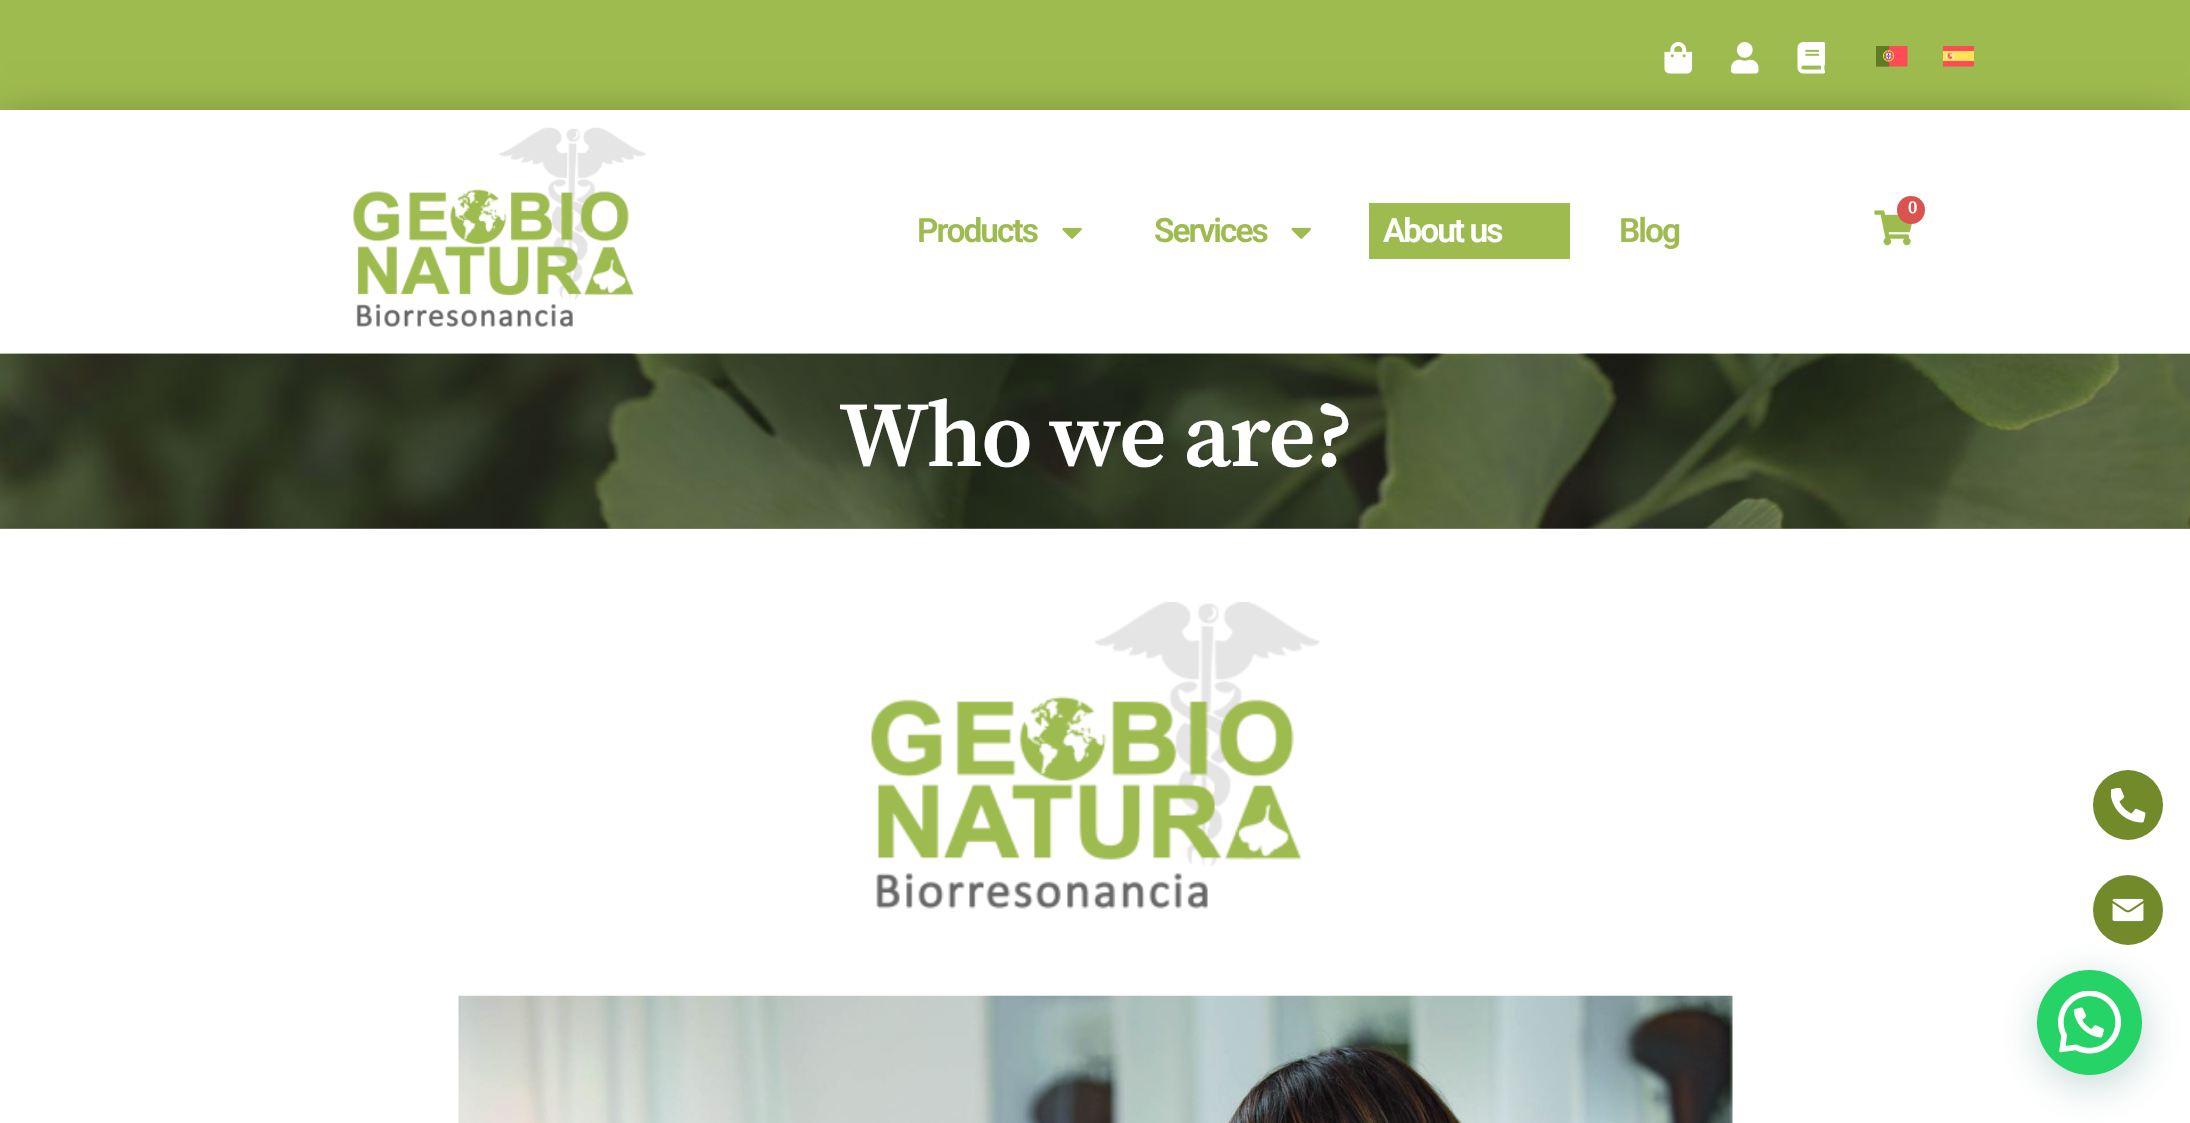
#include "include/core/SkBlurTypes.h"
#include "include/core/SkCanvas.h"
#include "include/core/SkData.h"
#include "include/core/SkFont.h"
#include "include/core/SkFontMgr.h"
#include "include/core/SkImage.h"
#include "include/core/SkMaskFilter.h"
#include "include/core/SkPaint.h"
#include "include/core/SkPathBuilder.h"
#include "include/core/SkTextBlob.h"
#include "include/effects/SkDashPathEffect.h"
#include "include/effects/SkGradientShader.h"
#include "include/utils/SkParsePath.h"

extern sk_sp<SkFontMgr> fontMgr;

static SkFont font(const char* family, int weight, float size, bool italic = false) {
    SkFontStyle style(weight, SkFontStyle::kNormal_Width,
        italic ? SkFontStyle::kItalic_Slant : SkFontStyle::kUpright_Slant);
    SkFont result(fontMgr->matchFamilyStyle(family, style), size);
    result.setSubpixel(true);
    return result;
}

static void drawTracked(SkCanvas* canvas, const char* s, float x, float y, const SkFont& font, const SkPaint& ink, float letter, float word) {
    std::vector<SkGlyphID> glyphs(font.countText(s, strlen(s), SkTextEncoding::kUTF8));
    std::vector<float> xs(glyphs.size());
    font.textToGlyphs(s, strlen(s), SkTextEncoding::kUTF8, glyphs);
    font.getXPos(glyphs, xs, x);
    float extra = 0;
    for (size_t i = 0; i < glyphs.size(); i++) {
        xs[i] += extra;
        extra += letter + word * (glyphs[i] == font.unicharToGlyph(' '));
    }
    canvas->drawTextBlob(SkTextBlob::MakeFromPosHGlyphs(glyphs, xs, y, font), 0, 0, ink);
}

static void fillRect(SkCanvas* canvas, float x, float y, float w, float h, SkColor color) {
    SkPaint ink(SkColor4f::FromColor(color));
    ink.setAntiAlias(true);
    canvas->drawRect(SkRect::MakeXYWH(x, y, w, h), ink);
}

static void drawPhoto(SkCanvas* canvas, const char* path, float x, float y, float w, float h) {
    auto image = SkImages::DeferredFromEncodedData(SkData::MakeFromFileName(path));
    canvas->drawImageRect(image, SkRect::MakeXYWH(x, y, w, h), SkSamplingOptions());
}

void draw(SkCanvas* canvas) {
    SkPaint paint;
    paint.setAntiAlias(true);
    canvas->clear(0xFFFFFFFF);
    fillRect(canvas, 0, 0, 2190, 110, 0xFF9EBB4F);
    drawPhoto(canvas, "assets/img1.png", 1664, 42, 29, 32);
    drawPhoto(canvas, "assets/img2.png", 1730, 42, 29, 32);
    drawPhoto(canvas, "assets/img3.png", 1797, 42, 29, 32);
    drawPhoto(canvas, "assets/img4.png", 1876, 46, 32, 21);
    drawPhoto(canvas, "assets/img5.png", 1943, 46, 31, 21);
    paint.setColor(0x80000000);
    paint.setMaskFilter(SkMaskFilter::MakeBlur(kNormal_SkBlurStyle, 22));
    canvas->drawRect(SkRect::MakeXYWH(5, 128, 2181, 233), paint);
    paint.setMaskFilter(nullptr);
    fillRect(canvas, 0, 110, 2190, 244, 0xFFFFFFFF);
    drawPhoto(canvas, "assets/img6.png", 353, 127, 293, 200);
    drawPhoto(canvas, "assets/img7.png", 1874, 210, 38, 36);
    paint.setColor(0xFFD9534F);
    canvas->drawCircle(1911, 210, 14, paint);
    SkFont font1 = font("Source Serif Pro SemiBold", 600, 18);
    paint.setColor(0xFFFFFFFF);
    drawTracked(canvas, "0", 1908, 213, font1, paint, -2, 0);
    SkFont font2 = font("Roboto", 600, 33.5f);
    paint.setColor(0xFF9EBB4F);
    drawTracked(canvas, "Products", 917, 242, font2, paint, -2, 0);
    drawPhoto(canvas, "assets/img8.png", 1062, 227, 20, 12);
    drawTracked(canvas, "Services", 1154, 242, font2, paint, -2, 0);
    drawPhoto(canvas, "assets/img9.png", 1291, 227, 20, 12);
    fillRect(canvas, 1369, 203, 201, 56, 0xFF9EBB4F);
    paint.setColor(0xFFFFFFFF);
    drawTracked(canvas, "About us", 1383, 242, font2, paint, -2, 0);
    paint.setColor(0xFF9EBB4F);
    drawTracked(canvas, "Blog", 1619, 242, font2, paint, -2, 0);
    paint.setColor(0xFF718B2B);
    canvas->drawCircle(2128, 805, 35, paint);
    drawPhoto(canvas, "assets/img10.png", 2111, 788, 35, 35);
    canvas->drawCircle(2128, 910, 35, paint);
    drawPhoto(canvas, "assets/img11.png", 2112, 898, 32, 24);
    drawPhoto(canvas, "assets/img12.png", 0, 353, 2190, 176);
    fillRect(canvas, 0, 354, 2190, 175, 0x80191717);
    SkFont font3 = font("Source Serif Pro SemiBold", 600, 92.5f);
    paint.setColor(0xFFFFFFFF);
    drawTracked(canvas, "Who we are?", 839, 466, font3, paint, -2, 0);
    drawPhoto(canvas, "assets/img13.png", 871, 602, 449, 307);
    drawPhoto(canvas, "assets/img14.png", 458, 995, 1275, 128);
    paint.setColor(0x3D075E54);
    paint.setMaskFilter(SkMaskFilter::MakeBlur(kNormal_SkBlurStyle, 21));
    canvas->drawRoundRect(SkRect::MakeXYWH(2039, 980, 105, 105), 52.5f, 52.5f, paint);
    paint.setMaskFilter(nullptr);
    paint.setColor(0xFF25D366);
    canvas->drawCircle(2089.5f, 1022.5f, 52.5f, paint);
    drawPhoto(canvas, "assets/img15.png", 2058, 991, 63, 63);
}
